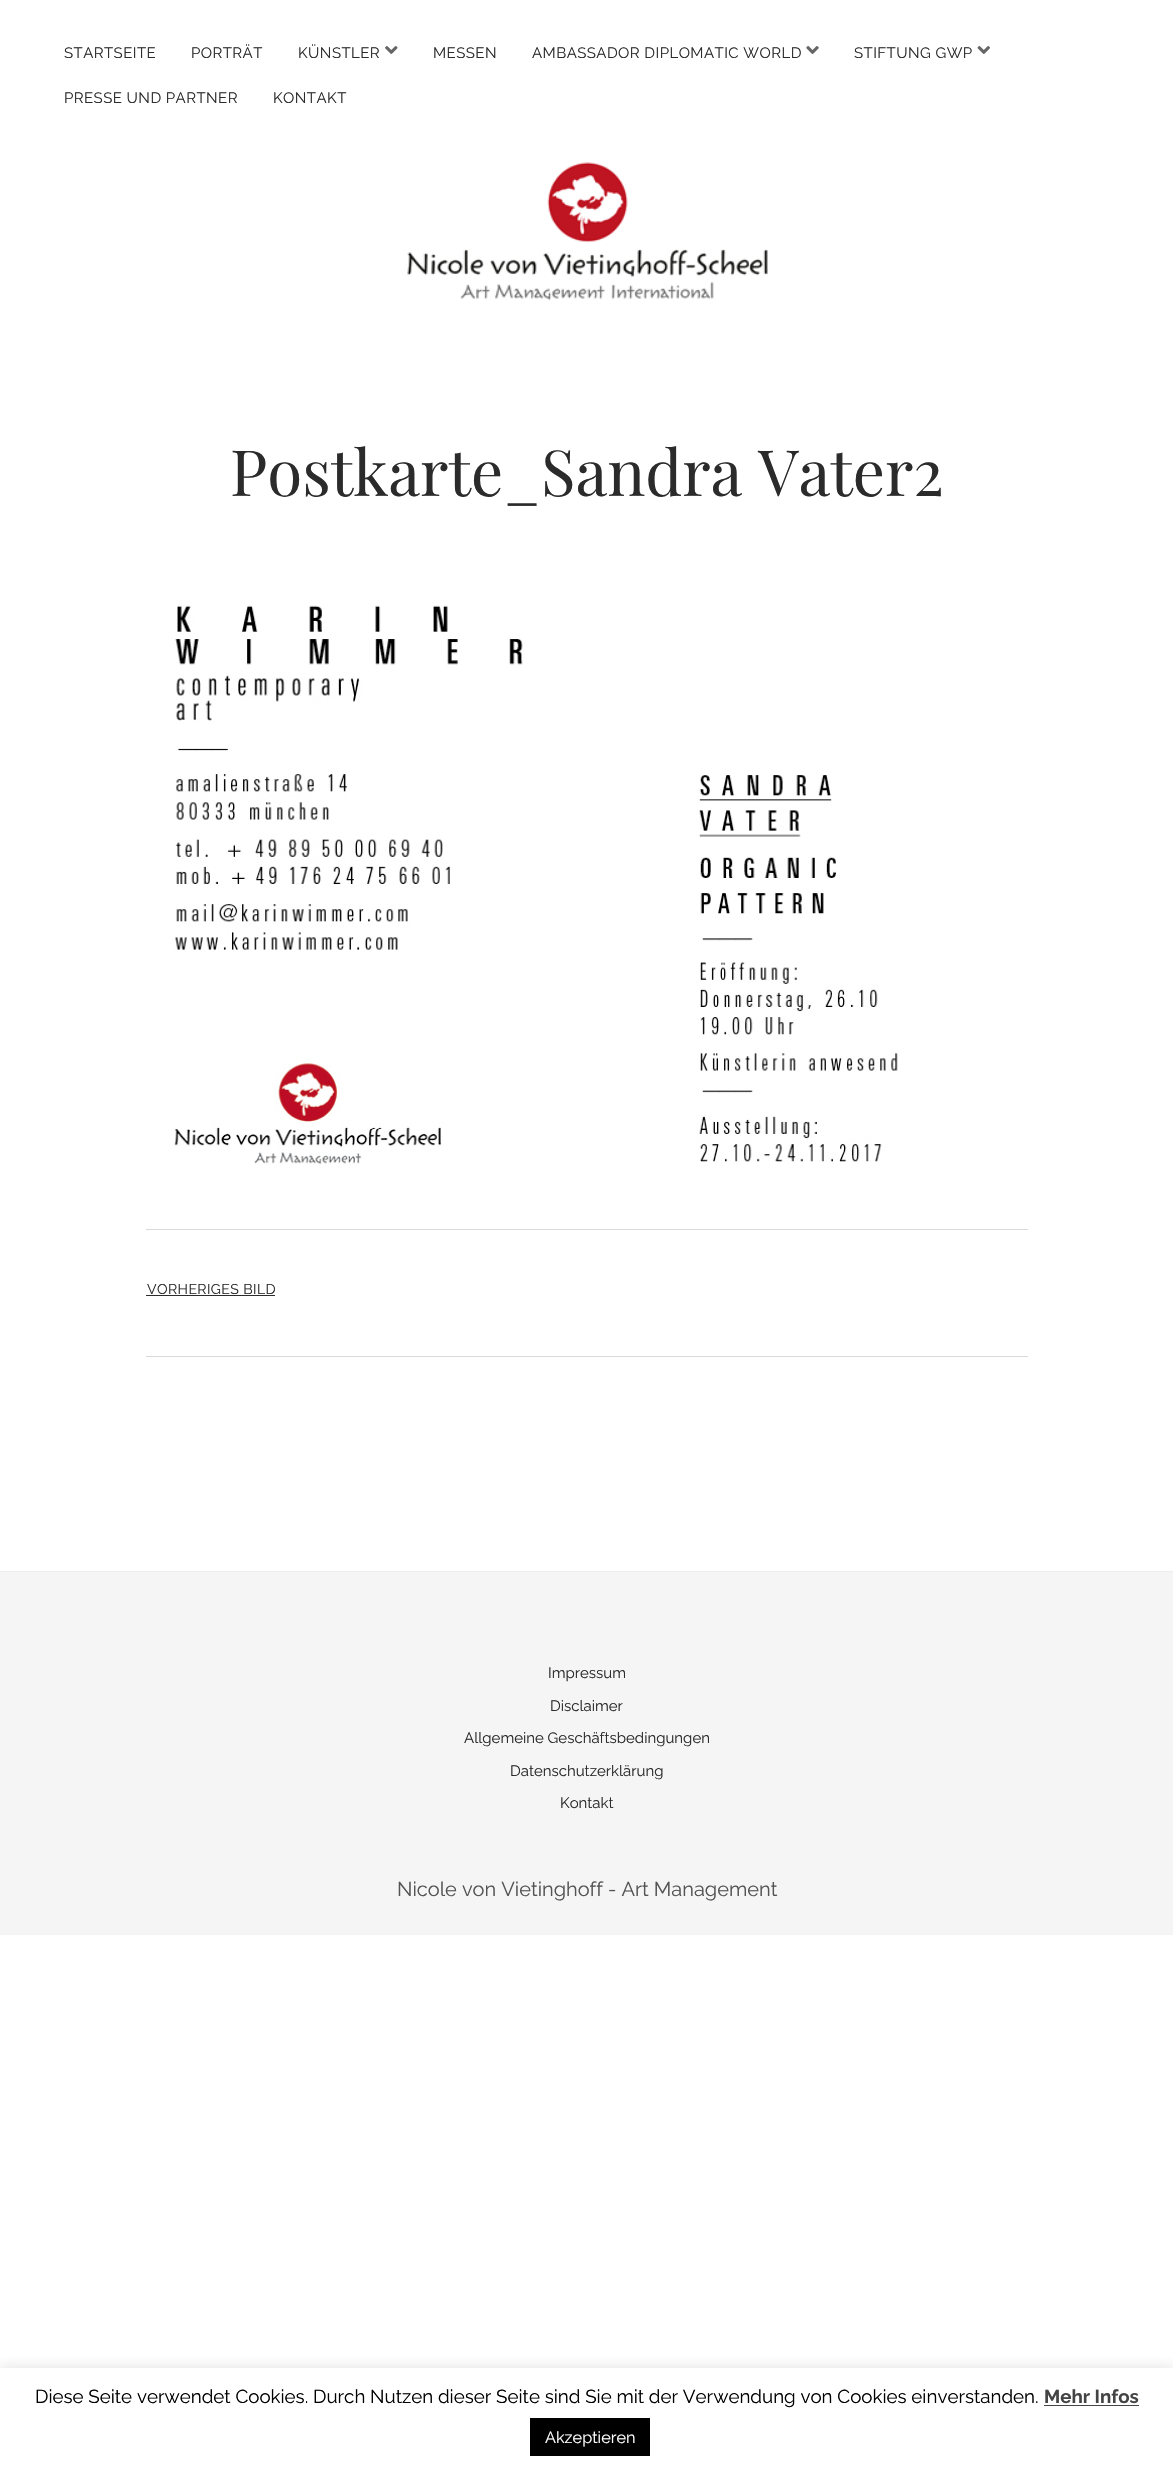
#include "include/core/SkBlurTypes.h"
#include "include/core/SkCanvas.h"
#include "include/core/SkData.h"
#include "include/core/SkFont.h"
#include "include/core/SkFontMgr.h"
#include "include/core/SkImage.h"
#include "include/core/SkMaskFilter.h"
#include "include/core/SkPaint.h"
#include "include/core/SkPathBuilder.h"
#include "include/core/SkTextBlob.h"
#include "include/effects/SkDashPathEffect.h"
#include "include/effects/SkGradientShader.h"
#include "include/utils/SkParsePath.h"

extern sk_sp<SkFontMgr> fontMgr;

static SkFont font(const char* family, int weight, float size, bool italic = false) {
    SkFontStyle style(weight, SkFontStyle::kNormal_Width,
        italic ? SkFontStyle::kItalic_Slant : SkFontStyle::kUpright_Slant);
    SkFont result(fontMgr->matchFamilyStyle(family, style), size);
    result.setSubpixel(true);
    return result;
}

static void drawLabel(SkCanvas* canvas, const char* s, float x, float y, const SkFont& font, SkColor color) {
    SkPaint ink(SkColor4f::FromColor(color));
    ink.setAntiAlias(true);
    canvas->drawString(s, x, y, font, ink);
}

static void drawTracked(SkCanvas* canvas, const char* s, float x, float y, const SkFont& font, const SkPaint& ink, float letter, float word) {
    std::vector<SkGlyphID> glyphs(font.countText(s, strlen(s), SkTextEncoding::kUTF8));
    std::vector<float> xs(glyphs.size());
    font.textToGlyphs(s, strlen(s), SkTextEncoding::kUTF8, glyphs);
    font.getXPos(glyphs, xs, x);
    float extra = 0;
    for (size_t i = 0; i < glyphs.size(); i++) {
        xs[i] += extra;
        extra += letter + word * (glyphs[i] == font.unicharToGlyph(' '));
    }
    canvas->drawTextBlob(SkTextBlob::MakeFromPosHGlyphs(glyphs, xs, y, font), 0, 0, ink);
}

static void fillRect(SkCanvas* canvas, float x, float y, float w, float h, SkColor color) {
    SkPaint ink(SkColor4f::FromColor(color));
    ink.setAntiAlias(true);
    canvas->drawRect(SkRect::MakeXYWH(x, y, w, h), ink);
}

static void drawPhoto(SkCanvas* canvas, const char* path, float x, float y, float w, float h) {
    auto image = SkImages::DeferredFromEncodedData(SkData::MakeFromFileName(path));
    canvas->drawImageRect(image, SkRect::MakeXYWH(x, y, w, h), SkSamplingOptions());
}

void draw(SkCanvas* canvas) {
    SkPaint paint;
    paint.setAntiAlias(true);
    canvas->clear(0xFFFFFFFF);
    SkFont font1 = font("Raleway", 400, 15);
    paint.setColor(0xFF2B2B2B);
    drawTracked(canvas, "STARTSEITE", 64, 58, font1, paint, 0.45f, 0);
    drawTracked(canvas, "PORTRÄT", 191, 58, font1, paint, 0.45f, 0);
    drawTracked(canvas, "KÜNSTLER", 298, 58, font1, paint, 0.45f, 0);
    drawPhoto(canvas, "assets/img1.png", 385, 46, 13, 8);
    drawTracked(canvas, "MESSEN", 433, 58, font1, paint, 0.45f, 0);
    drawTracked(canvas, "AMBASSADOR DIPLOMATIC WORLD", 532, 58, font1, paint, 0.45f, 0);
    drawPhoto(canvas, "assets/img2.png", 806, 46, 13, 8);
    drawTracked(canvas, "STIFTUNG GWP", 854, 58, font1, paint, 0.45f, 0);
    drawPhoto(canvas, "assets/img3.png", 977, 46, 13, 8);
    drawTracked(canvas, "PRESSE UND PARTNER", 64, 103, font1, paint, 0.45f, 0);
    drawTracked(canvas, "KONTAKT", 273, 103, font1, paint, 0.45f, 0);
    drawPhoto(canvas, "assets/img4.png", 407, 162, 361, 139);
    SkFont font2 = font("Playfair Display", 400, 63.75f);
    drawLabel(canvas, "Postkarte_Sandra Vater2", 230, 496, font2, 0xFF2B2B2B);
    drawPhoto(canvas, "assets/img5.png", 174, 605, 724, 560);
    fillRect(canvas, 146, 1229, 882, 1, 0xFFD9D9D9);
    fillRect(canvas, 146, 1356, 882, 1, 0xFFD9D9D9);
    SkFont font3 = font("Raleway", 400, 14.1f);
    drawTracked(canvas, "VORHERIGES BILD", 147, 1294, font3, paint, 0.4f, 0);
    fillRect(canvas, 146, 1295, 129, 1, 0xFF2B2B2B);
    fillRect(canvas, 0, 1572, 1173, 363, 0xFFF5F5F5);
    fillRect(canvas, 0, 1571, 1173, 1, 0xFFEDEDED);
    drawLabel(canvas, "Impressum", 548, 1678, font1, 0xFF2B2B2B);
    drawLabel(canvas, "Disclaimer", 550, 1711, font1, 0xFF2B2B2B);
    drawLabel(canvas, "Allgemeine Geschäftsbedingungen", 464, 1743, font1, 0xFF2B2B2B);
    drawLabel(canvas, "Datenschutzerklärung", 510, 1776, font1, 0xFF2B2B2B);
    drawLabel(canvas, "Kontakt", 560, 1808, font1, 0xFF2B2B2B);
    SkFont font4 = font("Raleway", 400, 20);
    drawLabel(canvas, "Nicole von Vietinghoff - Art Management", 397, 1896, font4, 0xFF545454);
    canvas->save();
    canvas->clipRect(SkRect::MakeXYWH(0, 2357, 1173, 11));
    paint.setColor(0x4DACABAB);
    paint.setMaskFilter(SkMaskFilter::MakeBlur(kNormal_SkBlurStyle, 6));
    canvas->drawRect(SkRect::MakeXYWH(0, 2366, 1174, 104), paint);
    paint.setMaskFilter(nullptr);
    canvas->restore();
    SkFont font5 = font("Raleway", 400, 18.75f);
    drawLabel(canvas, "Diese Seite verwendet Cookies. Durch Nutzen dieser Seite sind Sie mit der Verwendung von Cookies einverstanden.", 35, 2403, font5, 0xFF000000);
    SkFont font6 = font("Raleway", 700, 18.75f);
    drawLabel(canvas, "Mehr Infos", 1044, 2403, font6, 0xFF444444);
    fillRect(canvas, 1044, 2405, 95, 1, 0xFF444444);
    fillRect(canvas, 530, 2418, 120, 38, 0xFF000000);
    SkFont font7 = font("Raleway", 400, 16.25f);
    drawLabel(canvas, "Akzeptieren", 545, 2443, font7, 0xFFFFFFFF);
}
